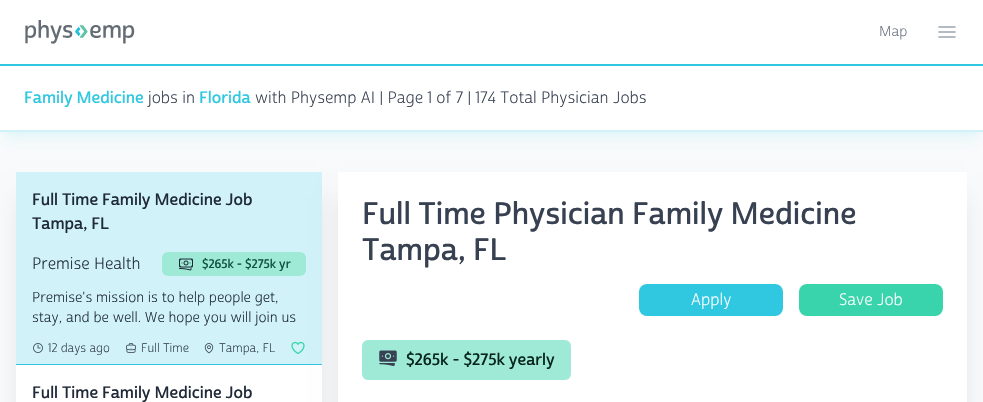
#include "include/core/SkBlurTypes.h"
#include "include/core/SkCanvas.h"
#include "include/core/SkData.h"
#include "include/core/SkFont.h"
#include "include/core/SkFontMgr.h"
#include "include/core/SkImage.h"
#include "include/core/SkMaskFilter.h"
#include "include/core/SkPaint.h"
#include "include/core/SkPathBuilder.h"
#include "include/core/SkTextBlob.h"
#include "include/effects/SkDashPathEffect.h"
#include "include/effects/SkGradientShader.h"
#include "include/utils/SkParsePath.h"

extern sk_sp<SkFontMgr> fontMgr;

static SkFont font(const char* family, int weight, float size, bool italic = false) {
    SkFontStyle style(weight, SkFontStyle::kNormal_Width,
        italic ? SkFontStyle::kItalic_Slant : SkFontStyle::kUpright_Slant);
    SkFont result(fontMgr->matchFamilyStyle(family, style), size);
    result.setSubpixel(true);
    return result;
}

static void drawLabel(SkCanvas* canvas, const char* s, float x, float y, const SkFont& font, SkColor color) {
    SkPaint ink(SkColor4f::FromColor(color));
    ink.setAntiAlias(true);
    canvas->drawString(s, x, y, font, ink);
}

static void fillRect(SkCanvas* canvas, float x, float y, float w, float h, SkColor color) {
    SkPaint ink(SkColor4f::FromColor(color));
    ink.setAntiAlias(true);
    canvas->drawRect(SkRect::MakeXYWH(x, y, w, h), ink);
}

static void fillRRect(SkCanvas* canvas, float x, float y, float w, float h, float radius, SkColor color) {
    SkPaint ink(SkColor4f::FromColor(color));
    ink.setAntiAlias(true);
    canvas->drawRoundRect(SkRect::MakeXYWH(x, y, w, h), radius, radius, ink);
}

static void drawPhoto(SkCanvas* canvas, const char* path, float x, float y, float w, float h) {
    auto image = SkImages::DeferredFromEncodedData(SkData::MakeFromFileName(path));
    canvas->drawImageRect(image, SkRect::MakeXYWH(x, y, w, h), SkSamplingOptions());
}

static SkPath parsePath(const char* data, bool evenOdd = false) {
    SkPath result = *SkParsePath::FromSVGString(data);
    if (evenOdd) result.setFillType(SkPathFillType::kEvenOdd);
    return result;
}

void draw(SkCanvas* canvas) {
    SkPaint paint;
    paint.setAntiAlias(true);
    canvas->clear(0xFFF9FAFB);
    paint.setColor(0x80D0F2F8);
    paint.setMaskFilter(SkMaskFilter::MakeBlur(kNormal_SkBlurStyle, 3));
    canvas->drawRect(SkRect::MakeXYWH(4, 8, 975, 124), paint);
    paint.setMaskFilter(nullptr);
    paint.setMaskFilter(SkMaskFilter::MakeBlur(kNormal_SkBlurStyle, 7.5f));
    canvas->drawRect(SkRect::MakeXYWH(3, 13, 977, 126), paint);
    paint.setMaskFilter(nullptr);
    fillRect(canvas, 0, 0, 983, 130, 0xFFFFFFFF);
    fillRect(canvas, 0, 130, 983, 2, 0xFFD0F2F8);
    fillRect(canvas, 0, 64, 983, 2, 0xFF30C7E0);
    drawPhoto(canvas, "assets/img1.png", 25, 20, 110, 24);
    SkFont font1 = font("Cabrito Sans", 400, 14);
    drawLabel(canvas, "Map", 879, 36, font1, 0xFF6B7280);
    paint.setStroke(true);
    paint.setStrokeWidth(1.5f);
    paint.setStrokeCap(SkPaint::kRound_Cap);
    paint.setStrokeJoin(SkPaint::kRound_Join);
    paint.setColor(0xFF9CA3AF);
    canvas->drawPath(parsePath("M939 27H955M939 32H955M939 37H955"), paint);
    SkFont font2 = font("Cabrito Sans", 700, 16);
    drawLabel(canvas, "Family Medicine", 24, 103, font2, 0xFF30C7E0);
    SkFont font3 = font("Cabrito Sans", 400, 16);
    drawLabel(canvas, "jobs in", 148, 103, font3, 0xFF374151);
    drawLabel(canvas, "Florida", 199, 103, font2, 0xFF30C7E0);
    drawLabel(canvas, "with Physemp AI | Page 1 of 7 | 174 Total Physician Jobs", 255, 103, font3, 0xFF374151);
    paint.setStroke(false);
    paint.setColor(0x1A000000);
    paint.setMaskFilter(SkMaskFilter::MakeBlur(kNormal_SkBlurStyle, 12.5f));
    canvas->drawRect(SkRect::MakeXYWH(21, 197, 296, 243), paint);
    paint.setMaskFilter(nullptr);
    fillRect(canvas, 16, 365, 306, 37, 0xFFFFFFFF);
    fillRect(canvas, 16, 172, 306, 192, 0xFFD0F2F8);
    drawLabel(canvas, "Full Time Family Medicine Job", 32, 205, font2, 0xFF1F2937);
    drawLabel(canvas, "Tampa, FL", 32, 229, font2, 0xFF1F2937);
    drawLabel(canvas, "Premise Health", 32, 269, font3, 0xFF1F2937);
    fillRRect(canvas, 162, 252, 144, 24, 6, 0xFF9EEAD6);
    drawPhoto(canvas, "assets/img2.png", 179, 258, 14, 13);
    SkFont font4 = font("Cabrito Sans", 700, 12);
    drawLabel(canvas, "$265k - $275k yr", 202, 268, font4, 0xFF125342);
    drawLabel(canvas, "Premise's mission is to help people get,", 32, 302, font1, 0xFF1F2937);
    drawLabel(canvas, "stay, and be well. We hope you will join us", 32, 322, font1, 0xFF1F2937);
    drawPhoto(canvas, "assets/img3.png", 33, 343, 10, 10);
    SkFont font5 = font("Cabrito Sans", 400, 12);
    drawLabel(canvas, "12 days ago", 48, 352, font5, 0xFF374151);
    drawPhoto(canvas, "assets/img4.png", 126, 343, 10, 10);
    drawLabel(canvas, "Full Time", 141, 352, font5, 0xFF374151);
    drawPhoto(canvas, "assets/img5.png", 204, 343, 10, 11);
    drawLabel(canvas, "Tampa, FL", 219, 352, font5, 0xFF374151);
    drawPhoto(canvas, "assets/img6.png", 291, 341, 14, 13);
    fillRect(canvas, 16, 364, 306, 1, 0xFF30C7E0);
    drawLabel(canvas, "Full Time Family Medicine Job", 32, 398, font2, 0xFF1F2937);
    paint.setMaskFilter(SkMaskFilter::MakeBlur(kNormal_SkBlurStyle, 12.5f));
    canvas->drawRect(SkRect::MakeXYWH(343, 197, 619, 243), paint);
    paint.setMaskFilter(nullptr);
    fillRect(canvas, 338, 172, 629, 230, 0xFFFFFFFF);
    SkFont font6 = font("Cabrito Sans", 700, 30);
    drawLabel(canvas, "Full Time Physician Family Medicine", 362, 224, font6, 0xFF374151);
    drawLabel(canvas, "Tampa, FL", 362, 260, font6, 0xFF374151);
    fillRRect(canvas, 639, 284, 144, 32, 8, 0xFF30C7E0);
    drawLabel(canvas, "Apply", 691, 305, font3, 0xFFFFFFFF);
    fillRRect(canvas, 799, 284, 144, 32, 8, 0xFF39D4AC);
    drawLabel(canvas, "Save Job", 839, 305, font3, 0xFFFFFFFF);
    fillRRect(canvas, 362, 340, 209, 40, 6, 0xFF9EEAD6);
    drawPhoto(canvas, "assets/img7.png", 379, 350, 18, 16);
    drawLabel(canvas, "$265k - $275k yearly", 406, 365, font2, 0xFF08251D);
}
